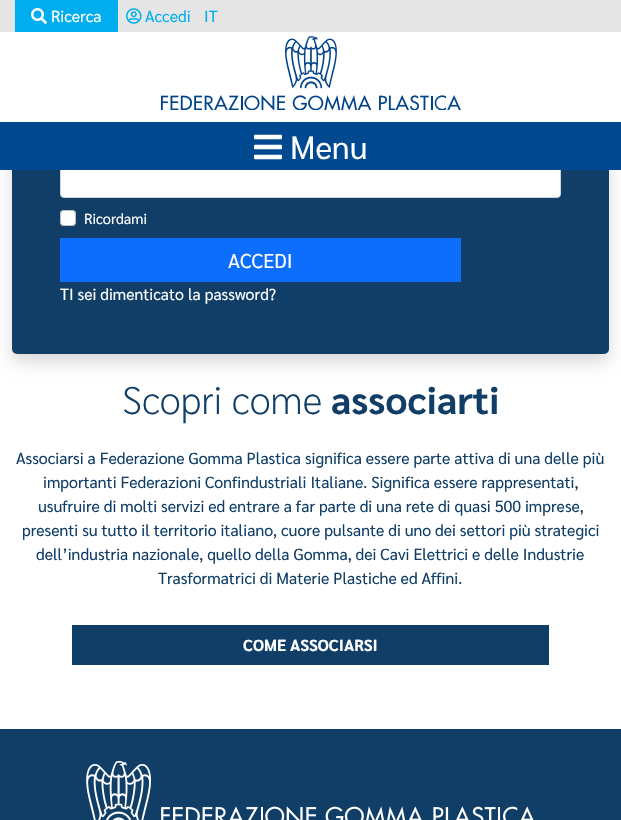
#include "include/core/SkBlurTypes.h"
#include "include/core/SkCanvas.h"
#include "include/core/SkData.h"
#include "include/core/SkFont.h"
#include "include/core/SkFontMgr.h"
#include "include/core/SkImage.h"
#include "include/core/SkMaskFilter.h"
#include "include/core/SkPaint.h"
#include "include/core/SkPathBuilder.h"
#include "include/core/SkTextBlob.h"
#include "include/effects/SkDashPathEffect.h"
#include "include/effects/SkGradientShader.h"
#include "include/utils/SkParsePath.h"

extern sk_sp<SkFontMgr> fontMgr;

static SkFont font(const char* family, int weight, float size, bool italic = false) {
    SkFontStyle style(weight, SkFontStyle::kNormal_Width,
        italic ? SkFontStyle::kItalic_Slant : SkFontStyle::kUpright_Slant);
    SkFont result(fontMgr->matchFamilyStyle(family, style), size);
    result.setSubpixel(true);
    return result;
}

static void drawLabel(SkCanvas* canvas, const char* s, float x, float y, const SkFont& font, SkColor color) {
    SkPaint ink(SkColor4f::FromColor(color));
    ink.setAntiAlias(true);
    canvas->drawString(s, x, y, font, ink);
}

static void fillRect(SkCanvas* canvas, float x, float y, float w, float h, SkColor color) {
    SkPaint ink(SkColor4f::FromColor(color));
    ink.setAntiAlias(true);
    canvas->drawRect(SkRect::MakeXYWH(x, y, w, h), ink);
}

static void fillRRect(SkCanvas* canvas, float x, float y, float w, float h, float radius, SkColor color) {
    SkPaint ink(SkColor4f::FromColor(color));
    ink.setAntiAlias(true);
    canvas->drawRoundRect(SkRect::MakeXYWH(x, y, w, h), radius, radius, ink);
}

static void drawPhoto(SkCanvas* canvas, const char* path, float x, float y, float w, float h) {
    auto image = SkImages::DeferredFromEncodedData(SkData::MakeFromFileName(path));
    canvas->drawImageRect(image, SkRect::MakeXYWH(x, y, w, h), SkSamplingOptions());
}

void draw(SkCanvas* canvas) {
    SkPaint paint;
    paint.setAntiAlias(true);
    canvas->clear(0xFFFFFFFF);
    paint.setColor(0x26000000);
    paint.setMaskFilter(SkMaskFilter::MakeBlur(kNormal_SkBlurStyle, 8));
    canvas->drawRoundRect(SkRect::MakeXYWH(12, -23, 597, 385), 5, 5, paint);
    paint.setMaskFilter(nullptr);
    fillRRect(canvas, 12, -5, 597, 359, 5, 0xFF103E67);
    fillRect(canvas, 0, 32, 621, 90, 0xFFFFFFFF);
    fillRect(canvas, 0, 0, 621, 32, 0xFFE5E5E5);
    fillRect(canvas, 15, 0, 103, 32, 0xFF00AEEF);
    drawPhoto(canvas, "assets/img1.png", 31, 8, 16, 16);
    SkFont font1 = font("Sarabun", 400, 16);
    drawLabel(canvas, "Ricerca", 51, 22, font1, 0xFFFFFFFF);
    drawPhoto(canvas, "assets/img2.png", 126, 8, 16, 16);
    drawLabel(canvas, "Accedi", 145, 22, font1, 0xFF00AEEF);
    drawLabel(canvas, "IT", 204, 22, font1, 0xFF00AEEF);
    drawPhoto(canvas, "assets/img3.png", 161, 36, 300, 74);
    paint.setColor(0xFFFFFFFF);
    canvas->drawRoundRect(SkRect::MakeXYWH(60.5f, 160.5f, 500, 37), 3.5f, 3.5f, paint);
    paint.setStroke(true);
    paint.setStrokeWidth(1);
    paint.setColor(0xFFCED4DA);
    canvas->drawRoundRect(SkRect::MakeXYWH(60.5f, 160.5f, 500, 37), 3.5f, 3.5f, paint);
    fillRect(canvas, 0, 122, 621, 48, 0xFF004990);
    drawPhoto(canvas, "assets/img4.png", 254, 134, 28, 26);
    SkFont font2 = font("Sarabun", 400, 32);
    drawLabel(canvas, "Menu", 290, 159, font2, 0xFFFFFFFF);
    fillRRect(canvas, 60, 210, 16, 16, 4, 0xFFFFFFFF);
    paint.setColor(0x40000000);
    canvas->drawRoundRect(SkRect::MakeXYWH(60.5f, 210.5f, 15, 15), 3.5f, 3.5f, paint);
    SkFont font3 = font("Sarabun", 400, 14.5f);
    drawLabel(canvas, "Ricordami", 84, 224, font3, 0xFFFFFFFF);
    fillRect(canvas, 60, 238, 401, 44, 0xFF0D6EFD);
    SkFont font4 = font("Sarabun", 400, 20);
    drawLabel(canvas, "ACCEDI", 228, 268, font4, 0xFFFFFFFF);
    drawLabel(canvas, "TI sei dimenticato la password?", 60, 300, font1, 0xFFFFFFFF);
    SkFont font5 = font("Sarabun", 200, 38.5f);
    drawLabel(canvas, "Scopri come", 122, 414, font5, 0xFF103E67);
    SkFont font6 = font("Sarabun", 700, 38.5f);
    drawLabel(canvas, "associarti", 331, 414, font6, 0xFF103E67);
    drawLabel(canvas, "Associarsi a Federazione Gomma Plastica significa essere parte attiva di una delle più", 16, 464, font1, 0xFF103E67);
    drawLabel(canvas, "importanti Federazioni Confindustriali Italiane. Significa essere rappresentati,", 43, 488, font1, 0xFF103E67);
    drawLabel(canvas, "usufruire di molti servizi ed entrare a far parte di una rete di quasi 500 imprese,", 38, 512, font1, 0xFF103E67);
    drawLabel(canvas, "presenti su tutto il territorio italiano, cuore pulsante di uno dei settori più strategici", 22, 536, font1, 0xFF103E67);
    drawLabel(canvas, "dell’industria nazionale, quello della Gomma, dei Cavi Elettrici e delle Industrie", 36, 560, font1, 0xFF103E67);
    drawLabel(canvas, "Trasformatrici di Materie Plastiche ed Affini.", 158, 584, font1, 0xFF103E67);
    fillRect(canvas, 72, 625, 477, 40, 0xFF103E67);
    SkFont font7 = font("Sarabun", 700, 16);
    drawLabel(canvas, "COME ASSOCIARSI", 243, 651, font7, 0xFFFFFFFF);
    fillRect(canvas, 0, 729, 621, 91, 0xFF103E67);
    drawPhoto(canvas, "assets/img5.png", 86, 761, 448, 59);
}
